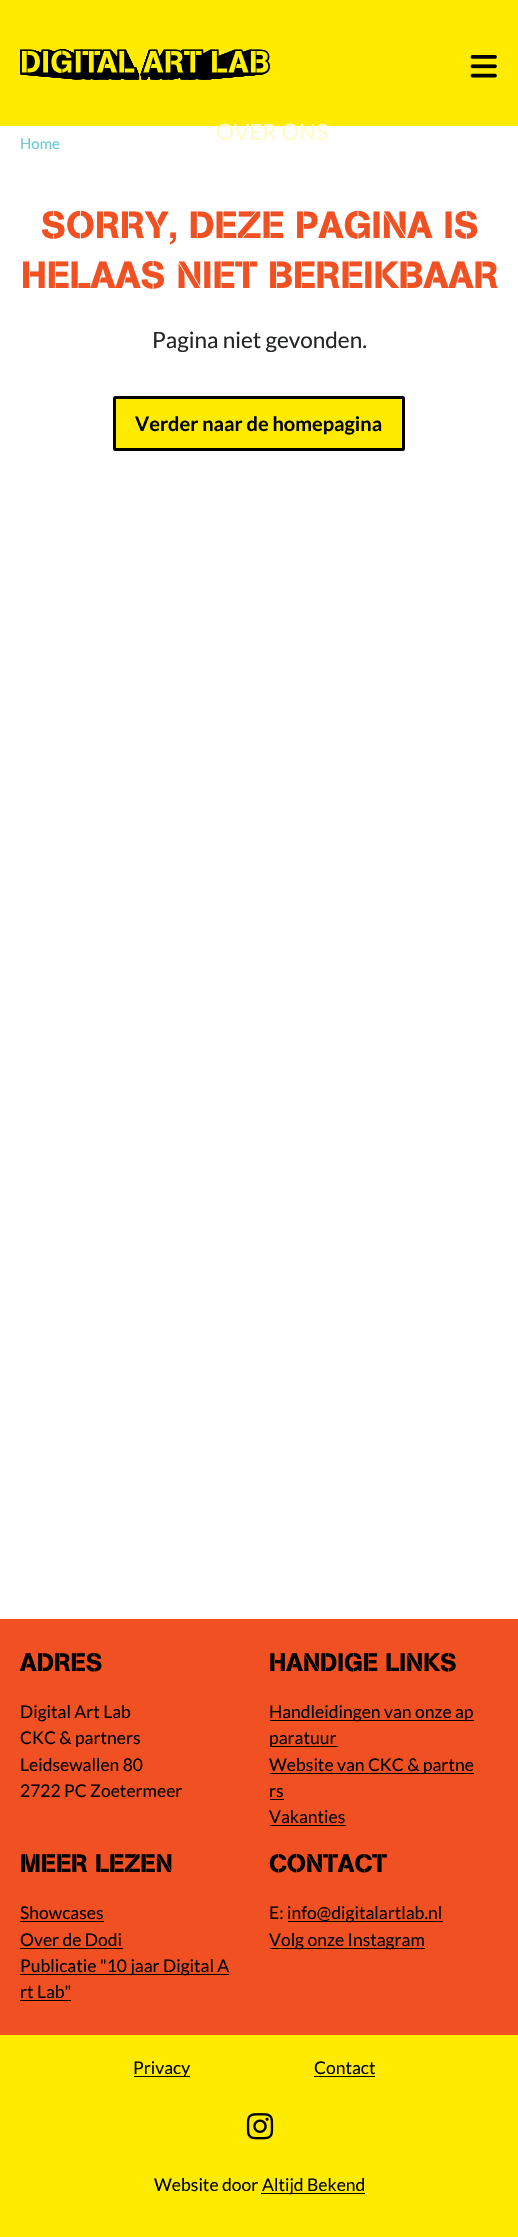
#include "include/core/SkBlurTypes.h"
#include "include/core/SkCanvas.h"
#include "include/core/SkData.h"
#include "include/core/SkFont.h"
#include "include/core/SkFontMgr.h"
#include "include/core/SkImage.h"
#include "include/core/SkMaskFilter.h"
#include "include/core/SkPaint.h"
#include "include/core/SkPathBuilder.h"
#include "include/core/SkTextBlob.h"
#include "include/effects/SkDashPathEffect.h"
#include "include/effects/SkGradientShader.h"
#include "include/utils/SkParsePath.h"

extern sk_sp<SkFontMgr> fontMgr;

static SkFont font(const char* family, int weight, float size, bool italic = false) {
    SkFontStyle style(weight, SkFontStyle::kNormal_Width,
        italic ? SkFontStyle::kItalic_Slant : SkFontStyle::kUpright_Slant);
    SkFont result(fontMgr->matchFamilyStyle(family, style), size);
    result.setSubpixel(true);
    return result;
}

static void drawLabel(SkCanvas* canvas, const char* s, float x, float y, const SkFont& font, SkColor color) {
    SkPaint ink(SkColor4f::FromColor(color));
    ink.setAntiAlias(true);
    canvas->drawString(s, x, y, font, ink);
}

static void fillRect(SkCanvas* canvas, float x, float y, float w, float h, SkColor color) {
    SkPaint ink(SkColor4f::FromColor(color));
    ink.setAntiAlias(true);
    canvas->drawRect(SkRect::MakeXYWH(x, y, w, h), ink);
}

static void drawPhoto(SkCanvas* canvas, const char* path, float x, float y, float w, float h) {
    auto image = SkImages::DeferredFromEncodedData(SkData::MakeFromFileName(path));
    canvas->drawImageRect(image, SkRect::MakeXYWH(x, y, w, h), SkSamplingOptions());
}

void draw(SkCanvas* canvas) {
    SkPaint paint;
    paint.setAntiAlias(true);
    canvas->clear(0xFFFFFFFF);
    fillRect(canvas, 0, 0, 518, 126, 0xFFFFEB00);
    drawPhoto(canvas, "assets/img1.png", 20, 49, 250, 31);
    drawPhoto(canvas, "assets/img2.png", 470, 55, 27, 23);
    SkFont font1 = font("Lato", 400, 22.5f);
    drawLabel(canvas, "OVER ONS", 216, 140, font1, 0xFFFFFBCC);
    SkFont font2 = font("Lato", 400, 15);
    drawLabel(canvas, "Home", 20, 149, font2, 0xFF6CCBD7);
    SkFont font3 = font("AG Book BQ", 400, 37.5f);
    drawLabel(canvas, "SORRY, DEZE PAGINA IS", 41, 238, font3, 0xFFF05022);
    drawLabel(canvas, "HELAAS NIET BEREIKBAAR", 21, 288, font3, 0xFFF05022);
    drawLabel(canvas, "Pagina niet gevonden.", 152, 348, font1, 0xFF222426);
    paint.setColor(0xFFFFEB00);
    canvas->drawRoundRect(SkRect::MakeXYWH(114.5f, 397.5f, 289, 52), 1, 1, paint);
    paint.setStroke(true);
    paint.setStrokeWidth(3);
    paint.setColor(0xFF000000);
    canvas->drawRoundRect(SkRect::MakeXYWH(114.5f, 397.5f, 289, 52), 1, 1, paint);
    SkFont font4 = font("Lato", 700, 20);
    drawLabel(canvas, "Verder naar de homepagina", 135, 431, font4, 0xFF000000);
    fillRect(canvas, 0, 1619, 518, 416, 0xFFF05022);
    SkFont font5 = font("AG Book BQ", 400, 25);
    drawLabel(canvas, "ADRES", 20, 1671, font5, 0xFF000000);
    SkFont font6 = font("Lato", 400, 17.5f);
    drawLabel(canvas, "Digital Art Lab", 20, 1718, font6, 0xFF000000);
    drawLabel(canvas, "CKC & partners", 20, 1744, font6, 0xFF000000);
    drawLabel(canvas, "Leidsewallen 80", 20, 1771, font6, 0xFF000000);
    drawLabel(canvas, "2722 PC Zoetermeer", 20, 1797, font6, 0xFF000000);
    drawLabel(canvas, "HANDIGE LINKS", 269, 1671, font5, 0xFF000000);
    fillRect(canvas, 270, 1720, 204, 1, 0xFF000000);
    drawLabel(canvas, "Handleidingen van onze ap", 269, 1718, font6, 0xFF000000);
    fillRect(canvas, 270, 1746, 68, 1, 0xFF000000);
    drawLabel(canvas, "paratuur", 269, 1744, font6, 0xFF000000);
    fillRect(canvas, 270, 1773, 204, 1, 0xFF000000);
    drawLabel(canvas, "Website van CKC & partne", 269, 1771, font6, 0xFF000000);
    drawLabel(canvas, "rs", 269, 1797, font6, 0xFF000000);
    fillRect(canvas, 270, 1799, 14, 1, 0xFF000000);
    drawLabel(canvas, "Vakanties", 269, 1823, font6, 0xFF000000);
    fillRect(canvas, 270, 1825, 76, 1, 0xFF000000);
    drawLabel(canvas, "MEER LEZEN", 20, 1872, font5, 0xFF000000);
    drawLabel(canvas, "Showcases", 20, 1919, font6, 0xFF000000);
    fillRect(canvas, 20, 1921, 84, 1, 0xFF000000);
    drawLabel(canvas, "Over de Dodi", 20, 1946, font6, 0xFF000000);
    fillRect(canvas, 20, 1948, 103, 1, 0xFF000000);
    fillRect(canvas, 20, 1974, 209, 1, 0xFF000000);
    drawLabel(canvas, "Publicatie \"10 jaar Digital A", 20, 1972, font6, 0xFF000000);
    drawLabel(canvas, "rt Lab\"", 20, 1998, font6, 0xFF000000);
    fillRect(canvas, 20, 2000, 51, 1, 0xFF000000);
    drawLabel(canvas, "CONTACT", 269, 1872, font5, 0xFF000000);
    drawLabel(canvas, "E:", 269, 1919, font6, 0xFF000000);
    fillRect(canvas, 288, 1921, 155, 1, 0xFF000000);
    drawLabel(canvas, "info@digitalartlab.nl", 287, 1919, font6, 0xFF000000);
    fillRect(canvas, 270, 1948, 155, 1, 0xFF000000);
    drawLabel(canvas, "Volg onze Instagram", 269, 1946, font6, 0xFF000000);
    fillRect(canvas, 0, 2035, 518, 202, 0xFFFFEB00);
    fillRect(canvas, 134, 2076, 56, 1, 0xFF000000);
    drawLabel(canvas, "Privacy", 133, 2074, font6, 0xFF000000);
    drawLabel(canvas, "Contact", 314, 2074, font6, 0xFF000000);
    fillRect(canvas, 314, 2076, 61, 1, 0xFF000000);
    drawPhoto(canvas, "assets/img3.png", 246, 2113, 28, 27);
    drawLabel(canvas, "Website door", 154, 2191, font6, 0xFF000000);
    fillRect(canvas, 261, 2193, 104, 1, 0xFF000000);
    drawLabel(canvas, "Altijd Bekend", 262, 2191, font6, 0xFF000000);
}
